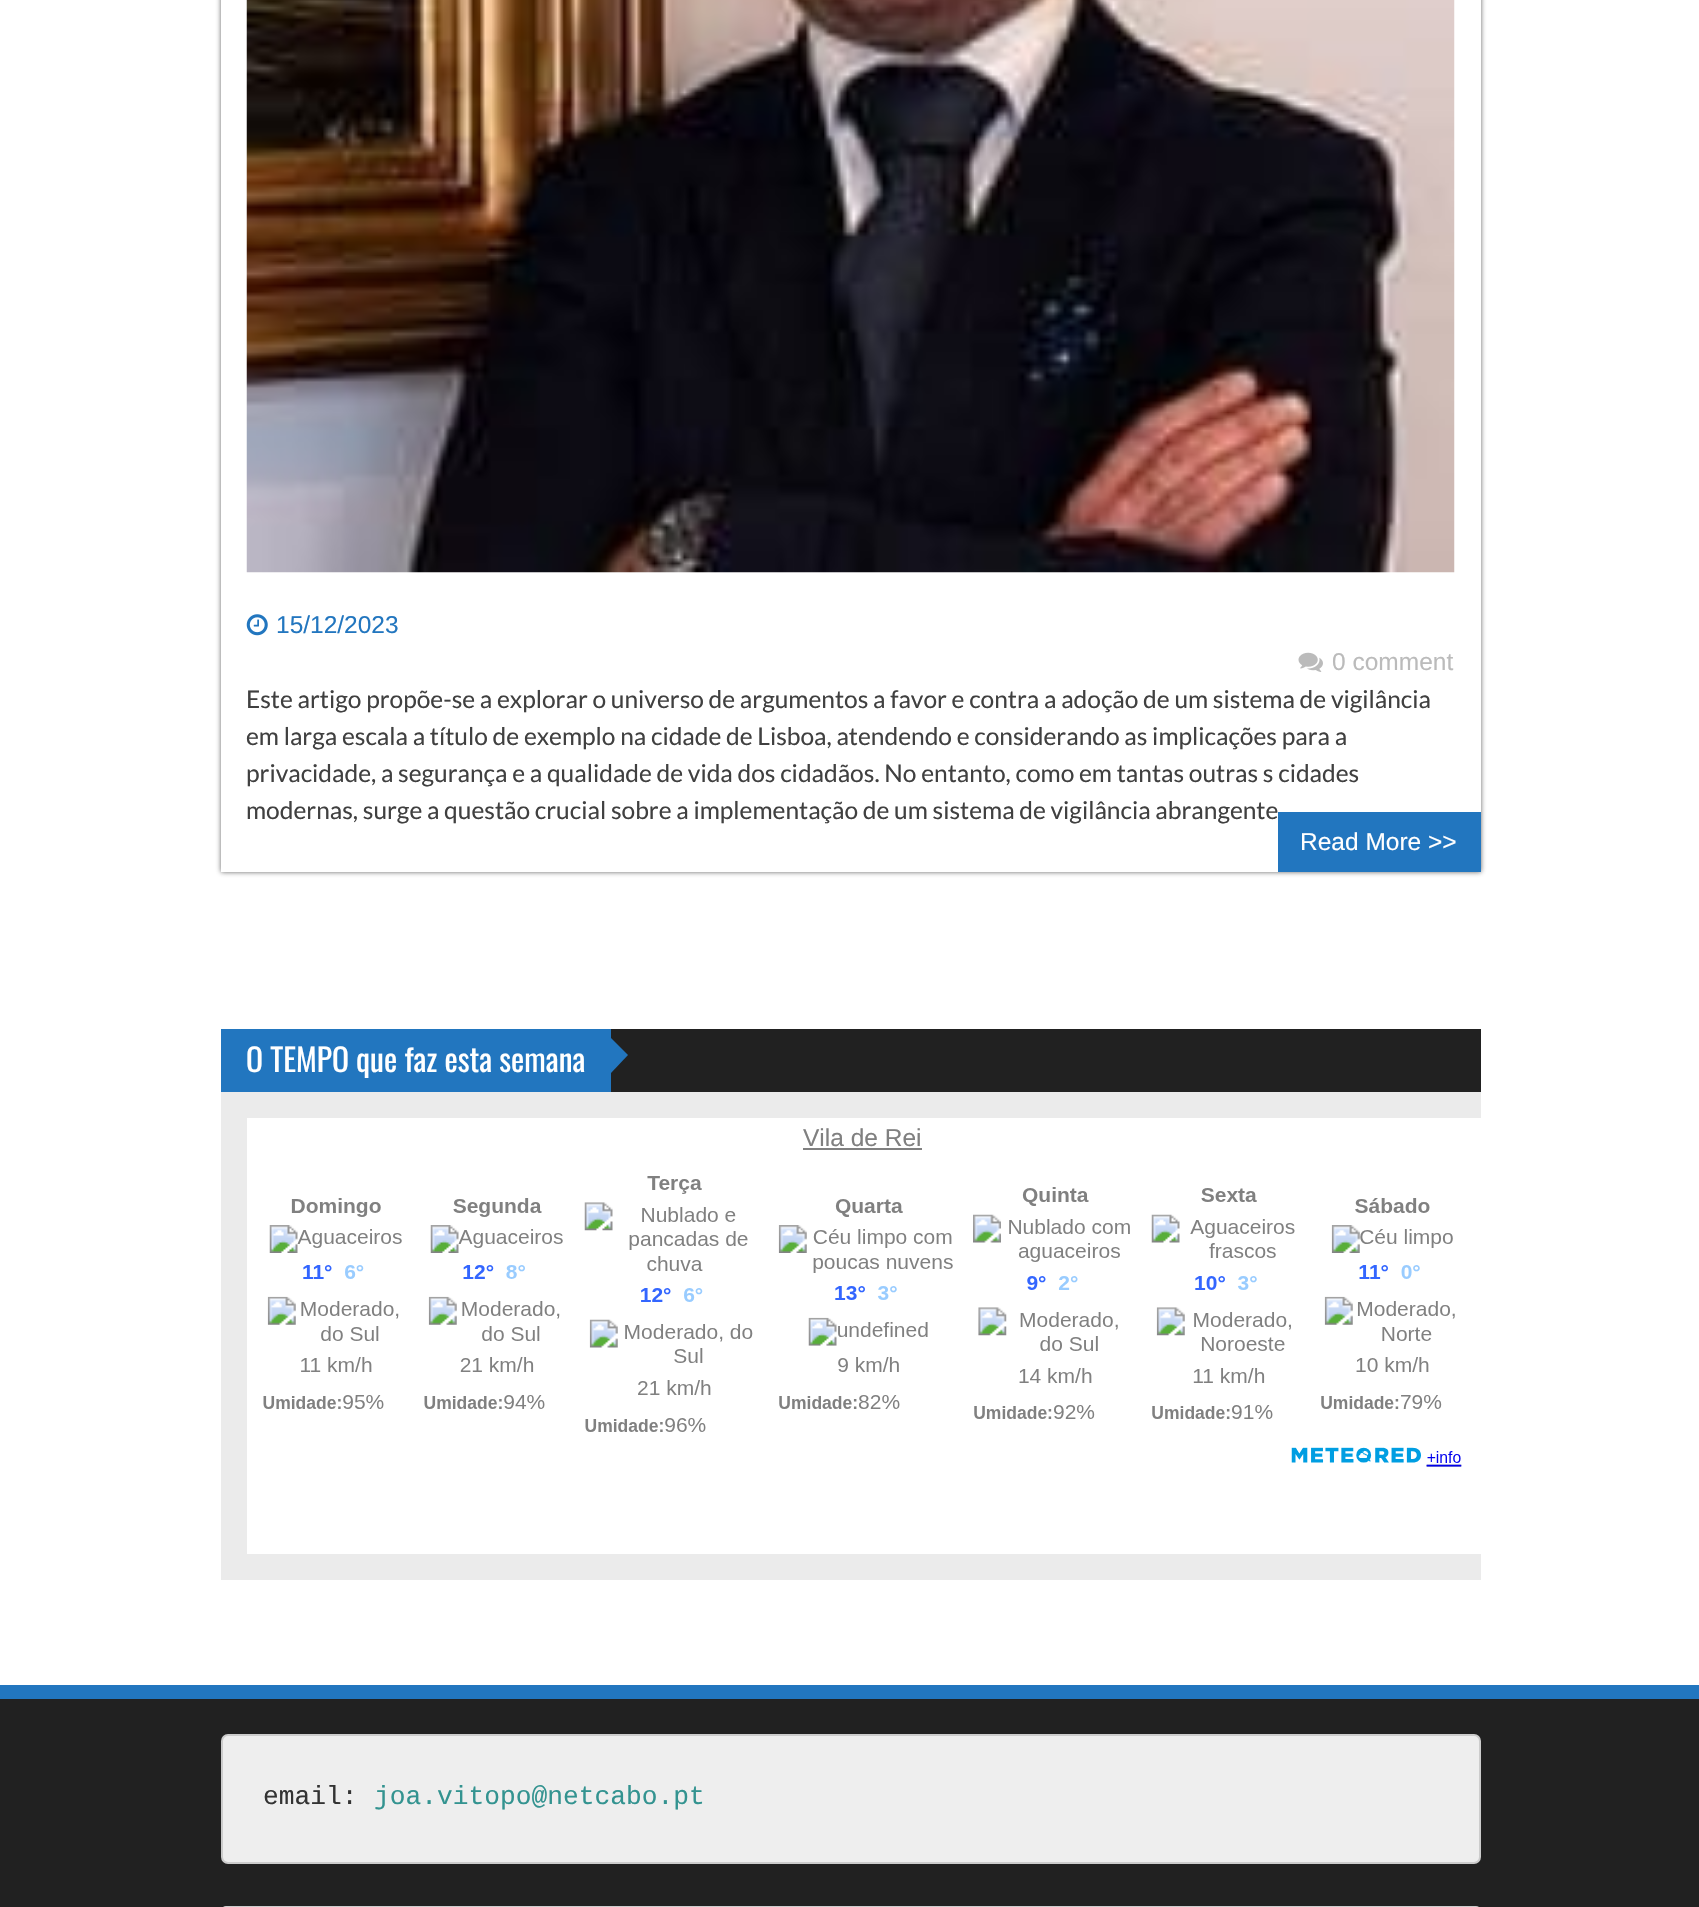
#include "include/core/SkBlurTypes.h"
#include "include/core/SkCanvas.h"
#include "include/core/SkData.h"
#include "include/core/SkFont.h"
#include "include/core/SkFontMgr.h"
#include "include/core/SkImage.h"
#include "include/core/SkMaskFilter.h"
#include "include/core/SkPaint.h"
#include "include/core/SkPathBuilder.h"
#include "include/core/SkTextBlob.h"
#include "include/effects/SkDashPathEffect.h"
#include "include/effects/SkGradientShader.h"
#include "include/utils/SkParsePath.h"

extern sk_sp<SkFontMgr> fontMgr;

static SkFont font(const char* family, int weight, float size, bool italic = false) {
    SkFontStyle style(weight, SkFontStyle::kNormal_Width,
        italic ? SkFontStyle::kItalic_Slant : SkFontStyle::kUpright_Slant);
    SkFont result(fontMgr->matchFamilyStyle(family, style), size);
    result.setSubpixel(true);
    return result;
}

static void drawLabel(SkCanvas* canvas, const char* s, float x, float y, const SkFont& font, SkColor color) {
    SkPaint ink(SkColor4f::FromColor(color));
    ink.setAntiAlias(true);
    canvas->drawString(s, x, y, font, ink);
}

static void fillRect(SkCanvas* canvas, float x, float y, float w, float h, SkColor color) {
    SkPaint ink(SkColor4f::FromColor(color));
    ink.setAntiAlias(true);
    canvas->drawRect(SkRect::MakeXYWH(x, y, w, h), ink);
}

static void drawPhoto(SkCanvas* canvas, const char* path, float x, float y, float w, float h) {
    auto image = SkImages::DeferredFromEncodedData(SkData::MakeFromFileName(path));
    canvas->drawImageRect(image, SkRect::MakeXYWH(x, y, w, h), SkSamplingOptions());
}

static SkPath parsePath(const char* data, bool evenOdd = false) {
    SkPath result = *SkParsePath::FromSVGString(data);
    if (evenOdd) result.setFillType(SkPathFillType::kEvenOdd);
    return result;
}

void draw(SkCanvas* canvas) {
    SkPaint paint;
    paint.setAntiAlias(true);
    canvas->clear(0xFFFFFFFF);
    paint.setColor(0xBF323232);
    paint.setMaskFilter(SkMaskFilter::MakeBlur(kNormal_SkBlurStyle, 2.5f));
    canvas->drawRect(SkRect::MakeXYWH(221, -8, 1260, 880), paint);
    paint.setMaskFilter(nullptr);
    fillRect(canvas, 221, 0, 1260, 872, 0xFFFFFFFF);
    drawPhoto(canvas, "assets/img1.png", 246, 0, 1209, 573);
    drawPhoto(canvas, "assets/img2.png", 246, 614, 22, 22);
    SkFont font1 = font("Liberation Sans", 400, 24.5f);
    drawLabel(canvas, "15/12/2023", 276, 633, font1, 0xFF2276BF);
    drawPhoto(canvas, "assets/img3.png", 1298, 652, 25, 20);
    drawLabel(canvas, "0 comment", 1332, 670, font1, 0xFFBBBBBB);
    SkFont font2 = font("Lato", 400, 24.5f);
    drawLabel(canvas, "Este artigo propõe-se a explorar o universo de argumentos a favor e contra a adoção de um sistema de vigilância", 246, 708, font2, 0xFF404040);
    drawLabel(canvas, "em larga escala a título de exemplo na cidade de Lisboa, atendendo e considerando as implicações para a", 246, 745, font2, 0xFF404040);
    drawLabel(canvas, "privacidade, a segurança e a qualidade de vida dos cidadãos. No entanto, como em tantas outras s cidades", 246, 782, font2, 0xFF404040);
    drawLabel(canvas, "modernas, surge a questão crucial sobre a implementação de um sistema de vigilância abrangente", 246, 819, font2, 0xFF404040);
    fillRect(canvas, 1278, 812, 203, 60, 0xFF2276BF);
    drawLabel(canvas, "Read More >>", 1300, 850, font1, 0xFFFFFFFF);
    fillRect(canvas, 221, 1092, 1260, 488, 0xFFEBEBEB);
    fillRect(canvas, 611, 1029, 870, 63, 0xFF212121);
    fillRect(canvas, 221, 1029, 390, 63, 0xFF2276BF);
    SkFont font3 = font("Oswald", 400, 31.5f);
    drawLabel(canvas, "O TEMPO que faz esta semana", 246, 1072, font3, 0xFFFFFFFF);
    paint.setColor(0xFF2276BF);
    canvas->drawPath(parsePath("M611 1073V1038L628 1055Z"), paint);
    fillRect(canvas, 247, 1118, 1234, 436, 0xFFFFFFFF);
    drawLabel(canvas, "Vila de Rei", 803, 1146, font1, 0xFF808080);
    fillRect(canvas, 803, 1148, 119, 2, 0xFF808080);
    drawPhoto(canvas, "assets/img4.png", 263, 1176, 1199, 291);
    fillRect(canvas, 0, 1699, 1699, 208, 0xFF212121);
    fillRect(canvas, 0, 1685, 1699, 14, 0xFF2276BF);
    paint.setColor(0xFFEEEEEE);
    canvas->drawRoundRect(SkRect::MakeXYWH(222, 1735, 1258, 128), 6, 6, paint);
    paint.setStroke(true);
    paint.setStrokeWidth(2);
    paint.setColor(0xFFCCCCCC);
    canvas->drawRoundRect(SkRect::MakeXYWH(222, 1735, 1258, 128), 6, 6, paint);
    SkFont font4 = font("Liberation Mono", 400, 26.25f);
    drawLabel(canvas, "email:", 263, 1804, font4, 0xFF333333);
    drawLabel(canvas, "joa.vitopo@netcabo.pt", 374, 1804, font4, 0xFF339390);
    canvas->drawRoundRect(SkRect::MakeXYWH(222, 1907, 1258, 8), 6, 6, paint);
}
